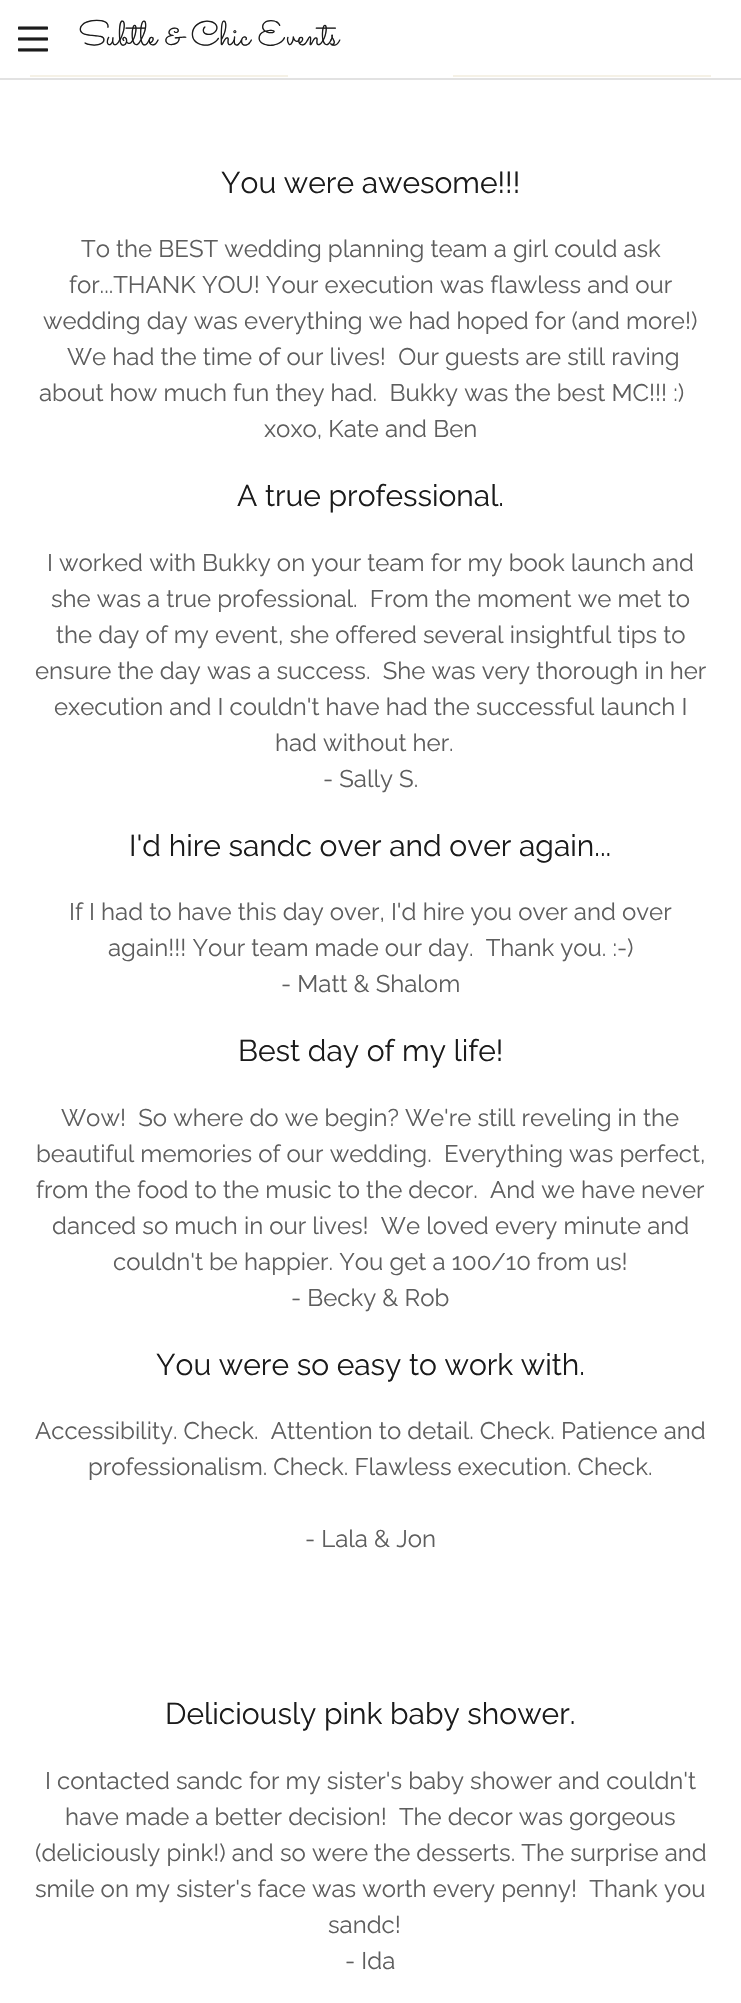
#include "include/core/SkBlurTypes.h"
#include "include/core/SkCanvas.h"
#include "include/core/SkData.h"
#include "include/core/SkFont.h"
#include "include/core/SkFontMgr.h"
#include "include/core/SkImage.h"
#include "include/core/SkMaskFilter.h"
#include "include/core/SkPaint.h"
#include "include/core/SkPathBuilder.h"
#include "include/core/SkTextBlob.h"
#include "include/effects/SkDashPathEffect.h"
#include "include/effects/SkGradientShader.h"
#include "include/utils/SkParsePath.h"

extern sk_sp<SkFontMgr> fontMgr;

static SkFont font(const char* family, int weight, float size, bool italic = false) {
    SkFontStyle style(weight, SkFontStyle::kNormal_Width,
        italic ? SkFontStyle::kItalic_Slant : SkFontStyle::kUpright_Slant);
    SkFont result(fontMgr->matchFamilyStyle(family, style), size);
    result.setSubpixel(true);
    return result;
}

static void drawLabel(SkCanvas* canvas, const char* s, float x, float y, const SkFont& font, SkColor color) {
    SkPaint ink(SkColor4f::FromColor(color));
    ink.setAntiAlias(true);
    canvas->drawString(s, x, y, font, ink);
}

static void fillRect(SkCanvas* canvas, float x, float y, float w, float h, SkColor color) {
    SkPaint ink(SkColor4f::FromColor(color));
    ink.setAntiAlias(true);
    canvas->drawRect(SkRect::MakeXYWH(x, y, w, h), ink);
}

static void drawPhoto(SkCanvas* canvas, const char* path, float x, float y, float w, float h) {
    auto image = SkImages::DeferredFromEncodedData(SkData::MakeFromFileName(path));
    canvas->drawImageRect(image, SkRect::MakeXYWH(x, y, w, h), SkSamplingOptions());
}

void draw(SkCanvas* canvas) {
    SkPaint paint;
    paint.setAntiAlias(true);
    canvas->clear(0xFFFFFFFF);
    fillRect(canvas, 30, 75, 258, 2, 0xFF997000);
    fillRect(canvas, 453, 75, 258, 2, 0xFF997000);
    fillRect(canvas, 30, 75, 681, 2, 0xE6FFFFFF);
    drawPhoto(canvas, "assets/img1.png", 18, 26, 30, 26);
    SkFont font1 = font("Sacramento", 400, 34.5f);
    drawLabel(canvas, "Subtle & Chic Events", 78, 45, font1, 0xFF1B1B1B);
    fillRect(canvas, 0, 78, 741, 2, 0xFFE2E2E2);
    SkFont font2 = font("Raleway", 400, 30);
    drawLabel(canvas, "You were awesome!!!", 221, 193, font2, 0xFF1B1B1B);
    SkFont font3 = font("Raleway", 400, 24);
    drawLabel(canvas, "To the BEST wedding planning team a girl could ask", 81, 257, font3, 0xFF5E5E5E);
    drawLabel(canvas, "for...THANK YOU! Your execution was flawless and our", 69, 293, font3, 0xFF5E5E5E);
    drawLabel(canvas, "wedding day was everything we had hoped for (and more!)", 43, 329, font3, 0xFF5E5E5E);
    drawLabel(canvas, "We had the time of our lives!  Our guests are still raving", 67, 365, font3, 0xFF5E5E5E);
    drawLabel(canvas, "about how much fun they had.  Bukky was the best MC!!! :)", 39, 401, font3, 0xFF5E5E5E);
    drawLabel(canvas, "xoxo, Kate and Ben", 264, 437, font3, 0xFF5E5E5E);
    drawLabel(canvas, "A true professional.", 237, 506, font2, 0xFF1B1B1B);
    drawLabel(canvas, "I worked with Bukky on your team for my book launch and", 47, 571, font3, 0xFF5E5E5E);
    drawLabel(canvas, "she was a true professional.  From the moment we met to", 51, 607, font3, 0xFF5E5E5E);
    drawLabel(canvas, "the day of my event, she offered several insightful tips to", 56, 643, font3, 0xFF5E5E5E);
    drawLabel(canvas, "ensure the day was a success.  She was very thorough in her", 35, 679, font3, 0xFF5E5E5E);
    drawLabel(canvas, "execution and I couldn't have had the successful launch I", 54, 715, font3, 0xFF5E5E5E);
    drawLabel(canvas, "had without her.", 275, 751, font3, 0xFF5E5E5E);
    drawLabel(canvas, "- Sally S.", 323, 787, font3, 0xFF5E5E5E);
    drawLabel(canvas, "I'd hire sandc over and over again...", 129, 856, font2, 0xFF1B1B1B);
    drawLabel(canvas, "If I had to have this day over, I'd hire you over and over", 69, 920, font3, 0xFF5E5E5E);
    drawLabel(canvas, "again!!! Your team made our day.  Thank you. :-)", 108, 956, font3, 0xFF5E5E5E);
    drawLabel(canvas, "- Matt & Shalom", 281, 992, font3, 0xFF5E5E5E);
    drawLabel(canvas, "Best day of my life!", 238, 1061, font2, 0xFF1B1B1B);
    drawLabel(canvas, "Wow!  So where do we begin? We're still reveling in the", 61, 1126, font3, 0xFF5E5E5E);
    drawLabel(canvas, "beautiful memories of our wedding.  Everything was perfect,", 36, 1162, font3, 0xFF5E5E5E);
    drawLabel(canvas, "from the food to the music to the decor.  And we have never", 36, 1198, font3, 0xFF5E5E5E);
    drawLabel(canvas, "danced so much in our lives!  We loved every minute and", 52, 1234, font3, 0xFF5E5E5E);
    drawLabel(canvas, "couldn't be happier. You get a 100/10 from us!", 113, 1270, font3, 0xFF5E5E5E);
    drawLabel(canvas, "- Becky & Rob", 291, 1306, font3, 0xFF5E5E5E);
    drawLabel(canvas, "You were so easy to work with.", 156, 1375, font2, 0xFF1B1B1B);
    drawLabel(canvas, "Accessibility. Check.  Attention to detail. Check. Patience and", 35, 1439, font3, 0xFF5E5E5E);
    drawLabel(canvas, "professionalism. Check. Flawless execution. Check.", 88, 1475, font3, 0xFF5E5E5E);
    drawLabel(canvas, "- Lala & Jon", 305, 1547, font3, 0xFF5E5E5E);
    drawLabel(canvas, "Deliciously pink baby shower.", 165, 1724, font2, 0xFF1B1B1B);
    drawLabel(canvas, "I contacted sandc for my sister's baby shower and couldn't", 45, 1789, font3, 0xFF5E5E5E);
    drawLabel(canvas, "have made a better decision!  The decor was gorgeous", 65, 1825, font3, 0xFF5E5E5E);
    drawLabel(canvas, "(deliciously pink!) and so were the desserts. The surprise and", 35, 1861, font3, 0xFF5E5E5E);
    drawLabel(canvas, "smile on my sister's face was worth every penny!  Thank you", 35, 1897, font3, 0xFF5E5E5E);
    drawLabel(canvas, "sandc!", 328, 1933, font3, 0xFF5E5E5E);
    drawLabel(canvas, "- Ida", 345, 1969, font3, 0xFF5E5E5E);
}
